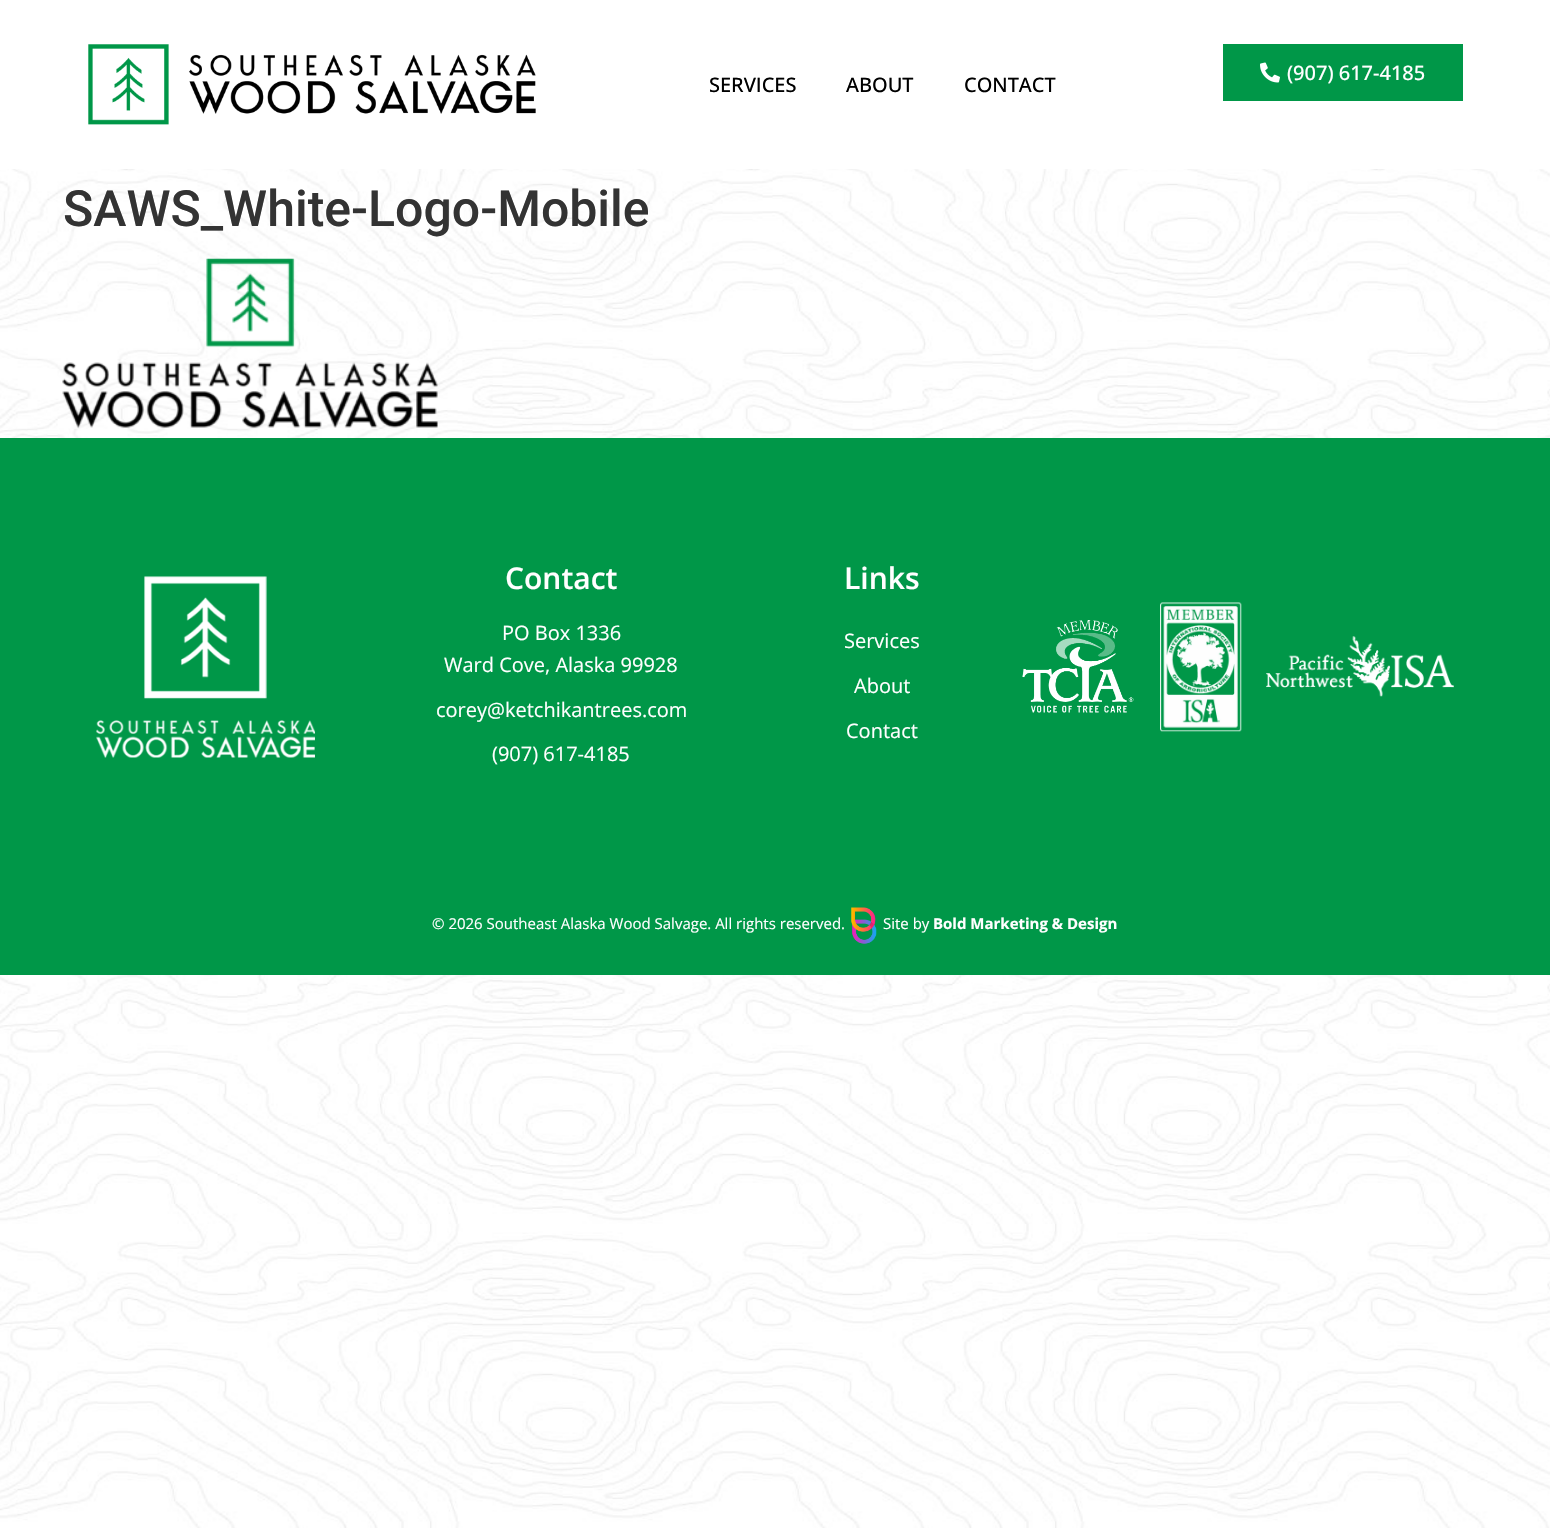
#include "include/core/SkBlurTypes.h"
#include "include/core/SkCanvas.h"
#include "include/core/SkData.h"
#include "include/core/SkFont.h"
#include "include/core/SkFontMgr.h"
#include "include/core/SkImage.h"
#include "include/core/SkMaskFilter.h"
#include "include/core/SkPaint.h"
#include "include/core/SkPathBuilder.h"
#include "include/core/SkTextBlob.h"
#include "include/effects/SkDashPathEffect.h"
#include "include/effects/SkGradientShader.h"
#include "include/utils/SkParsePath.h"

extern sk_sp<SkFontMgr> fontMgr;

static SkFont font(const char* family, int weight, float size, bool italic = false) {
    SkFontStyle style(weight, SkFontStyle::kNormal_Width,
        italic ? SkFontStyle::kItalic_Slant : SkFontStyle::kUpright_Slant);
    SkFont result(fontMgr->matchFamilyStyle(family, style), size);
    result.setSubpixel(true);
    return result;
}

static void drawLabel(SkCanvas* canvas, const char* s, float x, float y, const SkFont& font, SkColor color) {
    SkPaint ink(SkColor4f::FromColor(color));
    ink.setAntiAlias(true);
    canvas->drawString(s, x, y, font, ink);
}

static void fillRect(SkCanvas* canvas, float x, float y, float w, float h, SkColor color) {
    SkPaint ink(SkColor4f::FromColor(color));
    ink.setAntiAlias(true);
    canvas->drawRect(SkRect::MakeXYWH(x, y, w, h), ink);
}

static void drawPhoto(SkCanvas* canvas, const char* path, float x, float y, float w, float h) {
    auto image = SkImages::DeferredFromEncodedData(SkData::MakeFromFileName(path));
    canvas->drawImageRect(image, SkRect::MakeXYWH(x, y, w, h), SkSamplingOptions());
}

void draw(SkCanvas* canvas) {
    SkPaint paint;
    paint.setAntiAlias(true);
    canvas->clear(0xFFFFFFFF);
    drawPhoto(canvas, "assets/img1.png", 0, 169, 1550, 1359);
    drawPhoto(canvas, "assets/img2.png", 88, 44, 448, 81);
    SkFont font1 = font("Open Sans", 500, 20);
    drawLabel(canvas, "SERVICES", 709, 92, font1, 0xFF000000);
    drawLabel(canvas, "ABOUT", 846, 92, font1, 0xFF000000);
    drawLabel(canvas, "CONTACT", 964, 92, font1, 0xFF000000);
    fillRect(canvas, 1223, 44, 240, 57, 0xFF009748);
    drawPhoto(canvas, "assets/img3.png", 1260, 62, 20, 21);
    drawLabel(canvas, "(907) 617-4185", 1287, 80, font1, 0xFFFFFFFF);
    SkFont font2 = font("Roboto", 500, 50);
    drawLabel(canvas, "SAWS_White-Logo-Mobile", 63, 226, font2, 0xFF333333);
    drawPhoto(canvas, "assets/img4.png", 62, 258, 376, 170);
    fillRect(canvas, 0, 438, 1550, 537, 0xFF009748);
    drawPhoto(canvas, "assets/img5.png", 96, 576, 219, 182);
    SkFont font3 = font("Open Sans", 600, 30);
    drawLabel(canvas, "Contact", 505, 589, font3, 0xFFFFFFFF);
    SkFont font4 = font("Open Sans", 400, 20);
    drawLabel(canvas, "PO Box 1336", 502, 640, font4, 0xFFFFFFFF);
    drawLabel(canvas, "Ward Cove, Alaska 99928", 444, 672, font4, 0xFFFFFFFF);
    drawLabel(canvas, "corey@ketchikantrees.com", 436, 717, font4, 0xFFFFFFFF);
    drawLabel(canvas, "(907) 617-4185", 492, 761, font4, 0xFFFFFFFF);
    drawLabel(canvas, "Links", 844, 589, font3, 0xFFFFFFFF);
    drawLabel(canvas, "Services", 844, 648, font4, 0xFFFFFFFF);
    drawLabel(canvas, "About", 854, 693, font4, 0xFFFFFFFF);
    drawLabel(canvas, "Contact", 846, 738, font4, 0xFFFFFFFF);
    drawPhoto(canvas, "assets/img6.png", 1022, 620, 112, 93);
    drawPhoto(canvas, "assets/img7.png", 1160, 602, 82, 130);
    drawPhoto(canvas, "assets/img8.png", 1266, 636, 188, 61);
    SkFont font5 = font("Open Sans", 400, 15);
    drawLabel(canvas, "© 2026 Southeast Alaska Wood Salvage. All rights reserved.", 432, 929, font5, 0xFFFFFFFF);
    drawPhoto(canvas, "assets/img9.png", 851, 907, 26, 37);
    drawLabel(canvas, "Site by", 883, 929, font5, 0xFFFFFFFF);
    SkFont font6 = font("Open Sans", 700, 15);
    drawLabel(canvas, "Bold Marketing & Design", 933, 929, font6, 0xFFFFFFFF);
}
